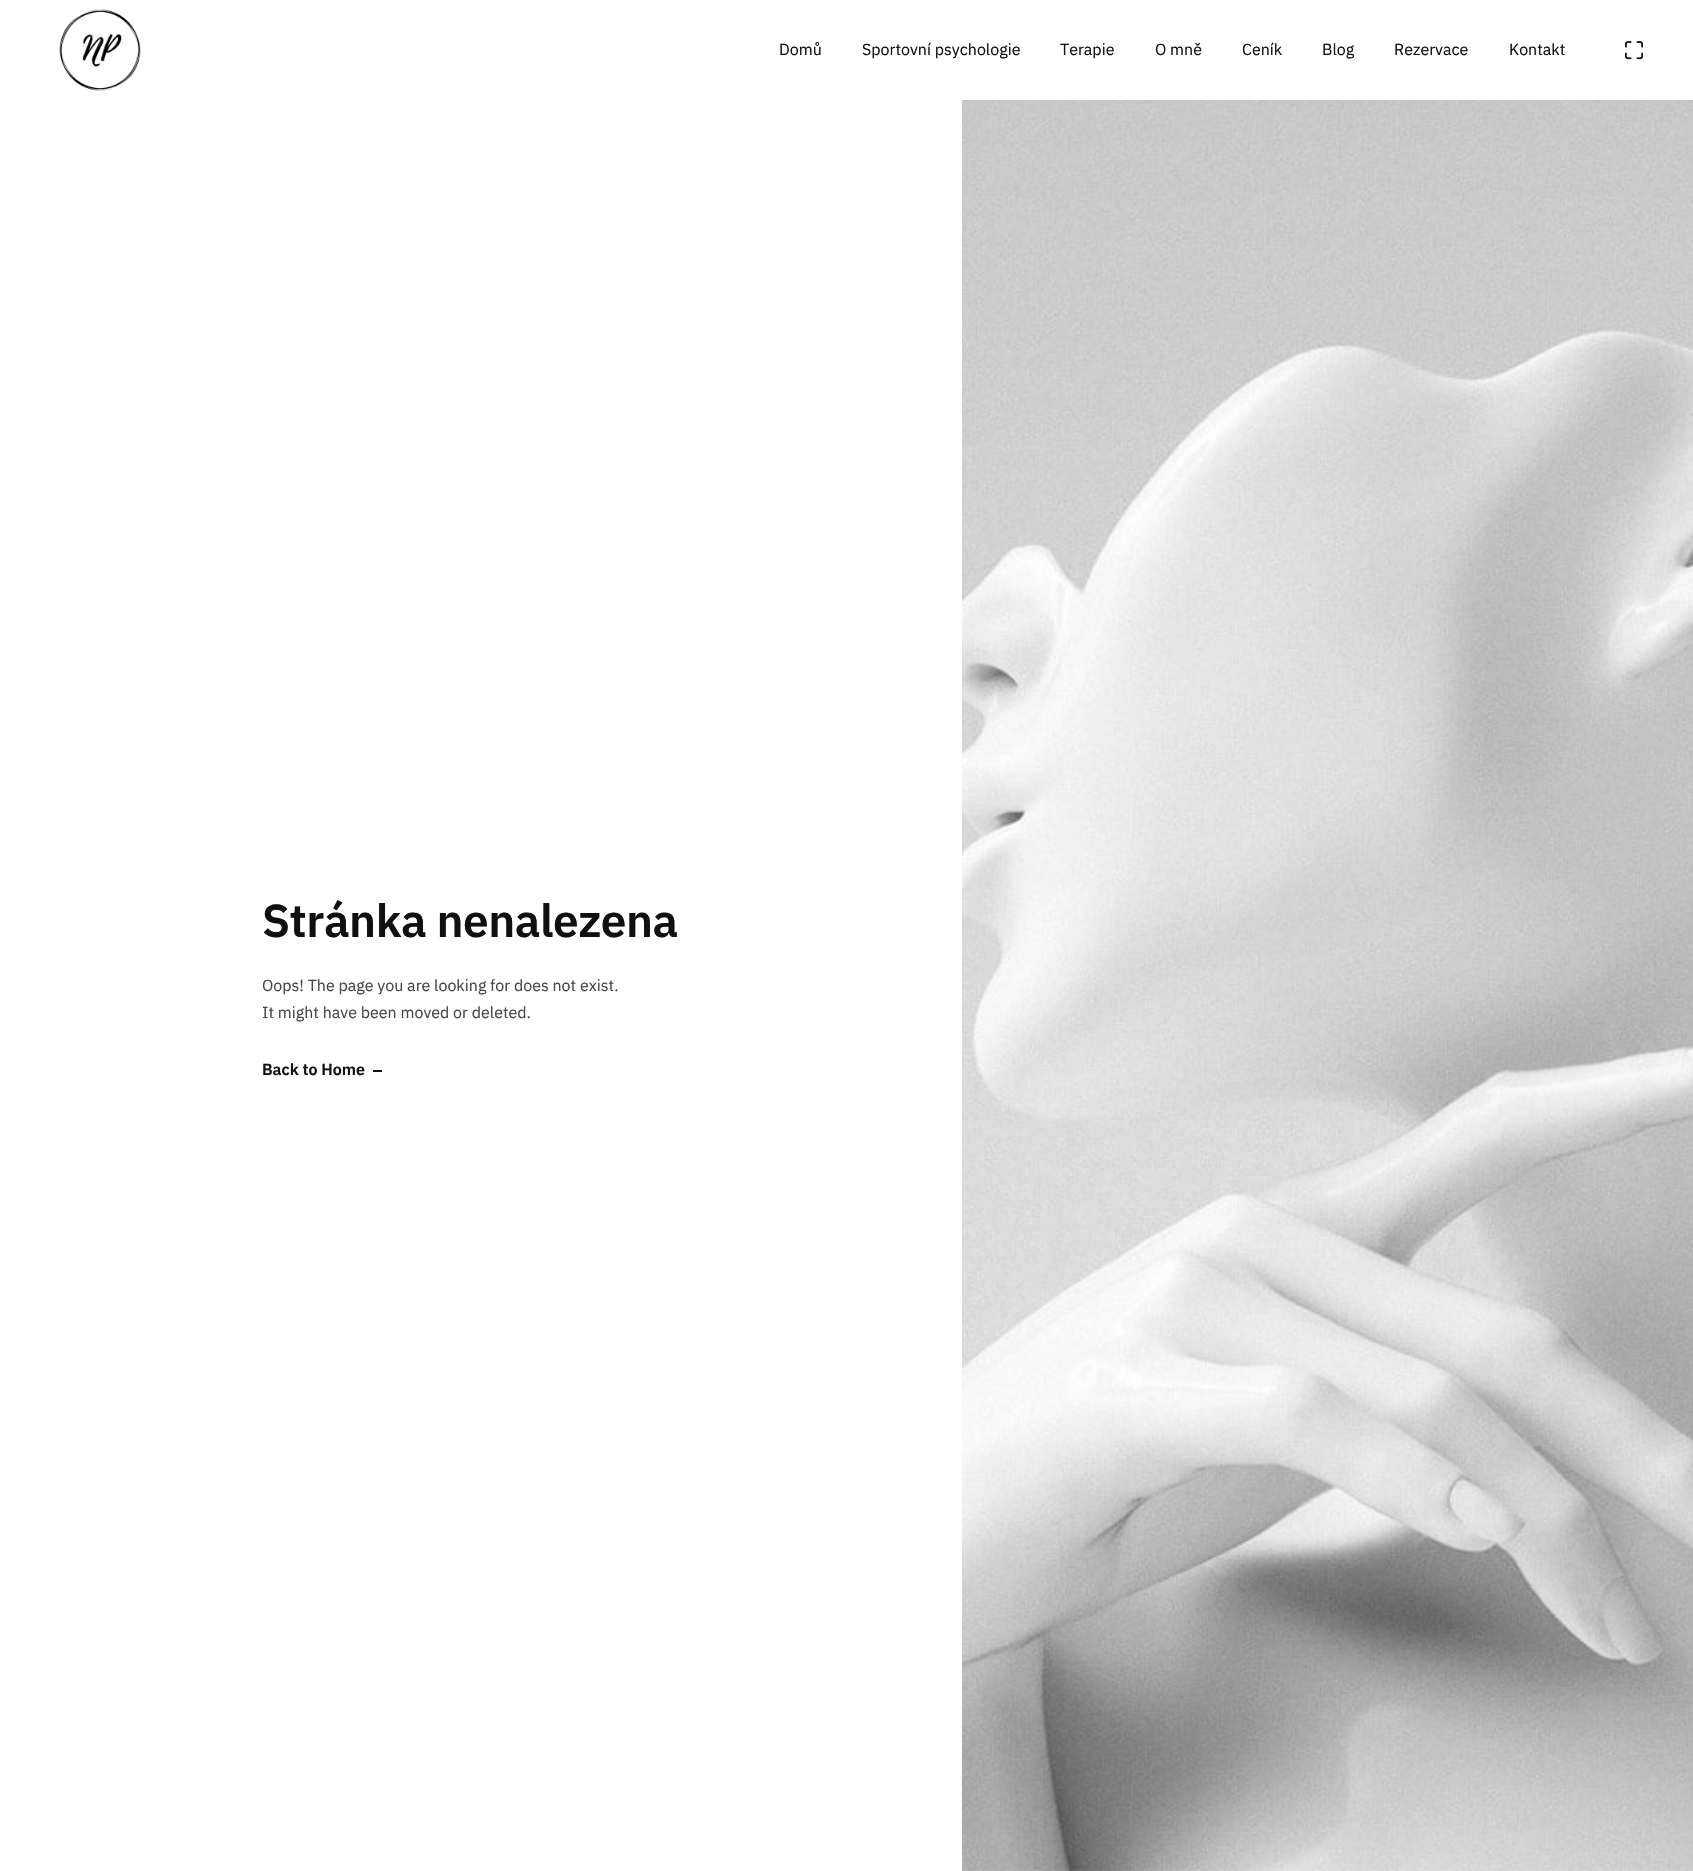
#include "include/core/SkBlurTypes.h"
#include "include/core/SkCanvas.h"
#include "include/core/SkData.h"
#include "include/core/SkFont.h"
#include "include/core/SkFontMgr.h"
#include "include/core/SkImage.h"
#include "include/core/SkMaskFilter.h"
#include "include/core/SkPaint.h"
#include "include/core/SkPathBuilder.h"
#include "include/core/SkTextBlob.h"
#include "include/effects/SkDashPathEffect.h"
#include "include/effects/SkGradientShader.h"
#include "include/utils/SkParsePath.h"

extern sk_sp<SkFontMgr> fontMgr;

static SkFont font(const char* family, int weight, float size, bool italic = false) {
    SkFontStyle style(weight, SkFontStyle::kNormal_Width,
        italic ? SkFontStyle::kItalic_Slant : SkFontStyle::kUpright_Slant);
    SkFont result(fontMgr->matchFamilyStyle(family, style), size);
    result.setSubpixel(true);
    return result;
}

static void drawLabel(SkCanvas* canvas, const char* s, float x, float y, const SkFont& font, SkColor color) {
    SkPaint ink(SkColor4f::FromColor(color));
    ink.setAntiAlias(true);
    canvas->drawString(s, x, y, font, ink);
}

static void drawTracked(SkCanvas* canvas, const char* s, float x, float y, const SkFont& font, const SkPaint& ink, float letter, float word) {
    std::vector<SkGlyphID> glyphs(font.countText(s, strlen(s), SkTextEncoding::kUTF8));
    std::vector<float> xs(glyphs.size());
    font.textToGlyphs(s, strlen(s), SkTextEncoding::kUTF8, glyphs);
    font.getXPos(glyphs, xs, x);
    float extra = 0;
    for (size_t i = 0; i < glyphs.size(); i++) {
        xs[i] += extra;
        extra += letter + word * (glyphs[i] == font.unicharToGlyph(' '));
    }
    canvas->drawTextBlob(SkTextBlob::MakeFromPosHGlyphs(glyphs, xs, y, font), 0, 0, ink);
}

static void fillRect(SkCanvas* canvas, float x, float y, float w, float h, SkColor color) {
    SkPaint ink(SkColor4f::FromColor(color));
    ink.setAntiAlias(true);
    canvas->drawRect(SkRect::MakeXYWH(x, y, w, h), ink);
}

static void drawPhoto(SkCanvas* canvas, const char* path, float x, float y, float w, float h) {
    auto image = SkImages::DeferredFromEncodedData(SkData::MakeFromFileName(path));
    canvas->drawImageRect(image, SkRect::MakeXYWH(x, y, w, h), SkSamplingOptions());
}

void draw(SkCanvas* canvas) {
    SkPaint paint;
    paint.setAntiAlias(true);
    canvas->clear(0xFFFFFFFF);
    drawPhoto(canvas, "assets/img1.png", 59, 9, 82, 82);
    SkFont font1 = font("IBM Plex Sans", 400, 16);
    drawLabel(canvas, "Domů", 779, 55, font1, 0xFF101010);
    drawLabel(canvas, "Sportovní psychologie", 862, 55, font1, 0xFF101010);
    drawLabel(canvas, "Terapie", 1060, 55, font1, 0xFF101010);
    drawLabel(canvas, "O mně", 1155, 55, font1, 0xFF101010);
    drawLabel(canvas, "Ceník", 1242, 55, font1, 0xFF101010);
    drawLabel(canvas, "Blog", 1322, 55, font1, 0xFF101010);
    drawLabel(canvas, "Rezervace", 1394, 55, font1, 0xFF101010);
    drawLabel(canvas, "Kontakt", 1509, 55, font1, 0xFF101010);
    drawPhoto(canvas, "assets/img2.png", 1625, 41, 18, 19);
    SkFont font2 = font("IBM Plex Sans", 600, 46);
    paint.setColor(0xFF101010);
    drawTracked(canvas, "Stránka nenalezena", 262, 937, font2, paint, -0.5f, 0);
    drawLabel(canvas, "Oops! The page you are looking for does not exist.", 262, 991, font1, 0xFF454545);
    drawLabel(canvas, "It might have been moved or deleted.", 262, 1018, font1, 0xFF454545);
    SkFont font3 = font("IBM Plex Sans", 600, 16);
    drawLabel(canvas, "Back to Home", 262, 1075, font3, 0xFF101010);
    fillRect(canvas, 373, 1070, 9, 2, 0xFF101010);
    drawPhoto(canvas, "assets/img3.png", 962, 100, 731, 1771);
}
